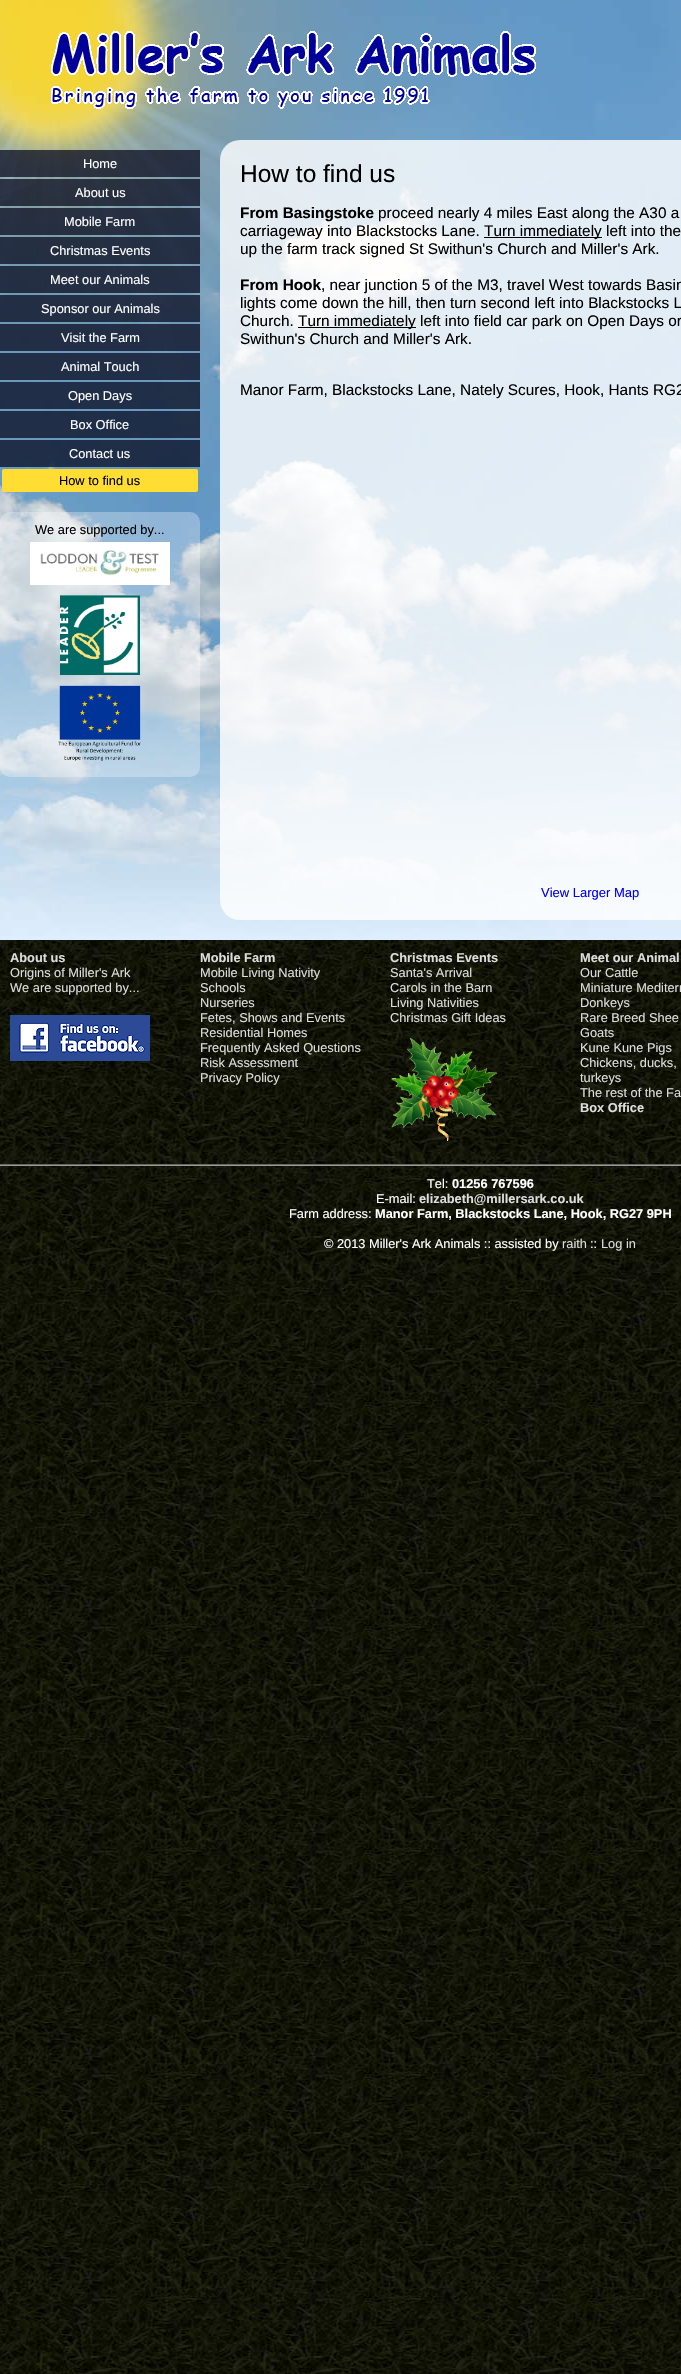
#include "include/core/SkBlurTypes.h"
#include "include/core/SkCanvas.h"
#include "include/core/SkData.h"
#include "include/core/SkFont.h"
#include "include/core/SkFontMgr.h"
#include "include/core/SkImage.h"
#include "include/core/SkMaskFilter.h"
#include "include/core/SkPaint.h"
#include "include/core/SkPathBuilder.h"
#include "include/core/SkTextBlob.h"
#include "include/effects/SkDashPathEffect.h"
#include "include/effects/SkGradientShader.h"
#include "include/utils/SkParsePath.h"

extern sk_sp<SkFontMgr> fontMgr;

static SkFont font(const char* family, int weight, float size, bool italic = false) {
    SkFontStyle style(weight, SkFontStyle::kNormal_Width,
        italic ? SkFontStyle::kItalic_Slant : SkFontStyle::kUpright_Slant);
    SkFont result(fontMgr->matchFamilyStyle(family, style), size);
    result.setSubpixel(true);
    return result;
}

static void drawLabel(SkCanvas* canvas, const char* s, float x, float y, const SkFont& font, SkColor color) {
    SkPaint ink(SkColor4f::FromColor(color));
    ink.setAntiAlias(true);
    canvas->drawString(s, x, y, font, ink);
}

static void fillRect(SkCanvas* canvas, float x, float y, float w, float h, SkColor color) {
    SkPaint ink(SkColor4f::FromColor(color));
    ink.setAntiAlias(true);
    canvas->drawRect(SkRect::MakeXYWH(x, y, w, h), ink);
}

static void fillRRect(SkCanvas* canvas, float x, float y, float w, float h, float radius, SkColor color) {
    SkPaint ink(SkColor4f::FromColor(color));
    ink.setAntiAlias(true);
    canvas->drawRoundRect(SkRect::MakeXYWH(x, y, w, h), radius, radius, ink);
}

static void drawPhoto(SkCanvas* canvas, const char* path, float x, float y, float w, float h) {
    auto image = SkImages::DeferredFromEncodedData(SkData::MakeFromFileName(path));
    canvas->drawImageRect(image, SkRect::MakeXYWH(x, y, w, h), SkSamplingOptions());
}

void draw(SkCanvas* canvas) {
    SkPaint paint;
    paint.setAntiAlias(true);
    canvas->clear(0xFFFFFFFF);
    drawPhoto(canvas, "assets/img1.png", 0, 940, 681, 1434);
    drawPhoto(canvas, "assets/img2.png", 0, 0, 681, 940);
    drawPhoto(canvas, "assets/img3.png", 51, 31, 485, 78);
    fillRect(canvas, 0, 150, 200, 27, 0xB3000014);
    SkFont font1 = font("Liberation Sans", 400, 12.8f);
    drawLabel(canvas, "Home", 83, 168, font1, 0xFFFFFFFF);
    fillRect(canvas, 0, 179, 200, 27, 0xB3000014);
    drawLabel(canvas, "About us", 75, 197, font1, 0xFFFFFFFF);
    fillRect(canvas, 0, 208, 200, 27, 0xB3000014);
    drawLabel(canvas, "Mobile Farm", 64, 226, font1, 0xFFFFFFFF);
    fillRect(canvas, 0, 237, 200, 27, 0xB3000014);
    drawLabel(canvas, "Christmas Events", 50, 255, font1, 0xFFFFFFFF);
    fillRect(canvas, 0, 266, 200, 27, 0xB3000014);
    drawLabel(canvas, "Meet our Animals", 50, 284, font1, 0xFFFFFFFF);
    fillRect(canvas, 0, 295, 200, 27, 0xB3000014);
    drawLabel(canvas, "Sponsor our Animals", 41, 313, font1, 0xFFFFFFFF);
    fillRect(canvas, 0, 324, 200, 27, 0xB3000014);
    drawLabel(canvas, "Visit the Farm", 61, 342, font1, 0xFFFFFFFF);
    fillRect(canvas, 0, 353, 200, 27, 0xB3000014);
    drawLabel(canvas, "Animal Touch", 61, 371, font1, 0xFFFFFFFF);
    fillRect(canvas, 0, 382, 200, 27, 0xB3000014);
    drawLabel(canvas, "Open Days", 68, 400, font1, 0xFFFFFFFF);
    fillRect(canvas, 0, 411, 200, 27, 0xB3000014);
    drawLabel(canvas, "Box Office", 70, 429, font1, 0xFFFFFFFF);
    fillRect(canvas, 0, 440, 200, 27, 0xB3000014);
    drawLabel(canvas, "Contact us", 69, 458, font1, 0xFFFFFFFF);
    fillRRect(canvas, 2, 469, 196, 23, 2, 0xFFFFDD33);
    drawLabel(canvas, "How to find us", 59, 485, font1, 0xFF000000);
    fillRRect(canvas, 0, 512, 200, 265, 10, 0x4DFFFFFF);
    drawLabel(canvas, "We are supported by...", 35, 534, font1, 0xFF000000);
    drawPhoto(canvas, "assets/img4.png", 30, 542, 140, 43);
    drawPhoto(canvas, "assets/img5.png", 60, 595, 80, 80);
    drawPhoto(canvas, "assets/img6.png", 58, 685, 83, 76);
    fillRRect(canvas, 220, 140, 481, 780, 20, 0xCCFFFFFF);
    SkFont font2 = font("Liberation Sans", 400, 24.5f);
    drawLabel(canvas, "How to find us", 240, 182, font2, 0xFF000000);
    SkFont font3 = font("Liberation Sans", 700, 15.35f);
    drawLabel(canvas, "From Basingstoke", 240, 218, font3, 0xFF000000);
    SkFont font4 = font("Liberation Sans", 400, 15.35f);
    drawLabel(canvas, "proceed nearly 4 miles East along the A30 a", 378, 218, font4, 0xFF000000);
    drawLabel(canvas, "carriageway into Blackstocks Lane.", 240, 236, font4, 0xFF000000);
    fillRect(canvas, 484, 237, 118, 1, 0xFF000000);
    drawLabel(canvas, "Turn immediately left into the", 484, 236, font4, 0xFF000000);
    drawLabel(canvas, "up the farm track signed St Swithun's Church and Miller's Ark.", 240, 254, font4, 0xFF000000);
    drawLabel(canvas, "From Hook", 240, 290, font3, 0xFF000000);
    drawLabel(canvas, ", near junction 5 of the M3, travel West towards Basin", 321, 290, font4, 0xFF000000);
    drawLabel(canvas, "lights come down the hill, then turn second left into Blackstocks L", 240, 308, font4, 0xFF000000);
    drawLabel(canvas, "Church.", 240, 326, font4, 0xFF000000);
    fillRect(canvas, 298, 327, 118, 1, 0xFF000000);
    drawLabel(canvas, "Turn immediately left into field car park on Open Days or", 298, 326, font4, 0xFF000000);
    drawLabel(canvas, "Swithun's Church and Miller's Ark.", 240, 344, font4, 0xFF000000);
    drawLabel(canvas, "Manor Farm, Blackstocks Lane, Nately Scures, Hook, Hants RG2", 240, 395, font4, 0xFF000000);
    SkFont font5 = font("Liberation Sans", 400, 13);
    drawLabel(canvas, "View Larger Map", 541, 897, font5, 0xFF0000FF);
    SkFont font6 = font("Liberation Sans", 700, 12.8f);
    drawLabel(canvas, "About us", 10, 962, font6, 0xFFDDDDDD);
    drawLabel(canvas, "Origins of Miller's Ark", 10, 977, font1, 0xFFDDDDDD);
    drawLabel(canvas, "We are supported by...", 10, 992, font1, 0xFFDDDDDD);
    drawPhoto(canvas, "assets/img7.png", 10, 1015, 140, 46);
    drawLabel(canvas, "Mobile Farm", 200, 962, font6, 0xFFDDDDDD);
    drawLabel(canvas, "Mobile Living Nativity", 200, 977, font1, 0xFFDDDDDD);
    drawLabel(canvas, "Schools", 200, 992, font1, 0xFFDDDDDD);
    drawLabel(canvas, "Nurseries", 200, 1007, font1, 0xFFDDDDDD);
    drawLabel(canvas, "Fetes, Shows and Events", 200, 1022, font1, 0xFFDDDDDD);
    drawLabel(canvas, "Residential Homes", 200, 1037, font1, 0xFFDDDDDD);
    drawLabel(canvas, "Frequently Asked Questions", 200, 1052, font1, 0xFFDDDDDD);
    drawLabel(canvas, "Risk Assessment", 200, 1067, font1, 0xFFDDDDDD);
    drawLabel(canvas, "Privacy Policy", 200, 1082, font1, 0xFFDDDDDD);
    drawLabel(canvas, "Christmas Events", 390, 962, font6, 0xFFDDDDDD);
    drawLabel(canvas, "Santa's Arrival", 390, 977, font1, 0xFFDDDDDD);
    drawLabel(canvas, "Carols in the Barn", 390, 992, font1, 0xFFDDDDDD);
    drawLabel(canvas, "Living Nativities", 390, 1007, font1, 0xFFDDDDDD);
    drawLabel(canvas, "Christmas Gift Ideas", 390, 1022, font1, 0xFFDDDDDD);
    drawPhoto(canvas, "assets/img8.png", 391, 1038, 107, 103);
    drawLabel(canvas, "Meet our Animal", 580, 962, font6, 0xFFDDDDDD);
    drawLabel(canvas, "Our Cattle", 580, 977, font1, 0xFFDDDDDD);
    drawLabel(canvas, "Miniature Mediterr", 580, 992, font1, 0xFFDDDDDD);
    drawLabel(canvas, "Donkeys", 580, 1007, font1, 0xFFDDDDDD);
    drawLabel(canvas, "Rare Breed Shee", 580, 1022, font1, 0xFFDDDDDD);
    drawLabel(canvas, "Goats", 580, 1037, font1, 0xFFDDDDDD);
    drawLabel(canvas, "Kune Kune Pigs", 580, 1052, font1, 0xFFDDDDDD);
    drawLabel(canvas, "Chickens, ducks,", 580, 1067, font1, 0xFFDDDDDD);
    drawLabel(canvas, "turkeys", 580, 1082, font1, 0xFFDDDDDD);
    drawLabel(canvas, "The rest of the Fa", 580, 1097, font1, 0xFFDDDDDD);
    drawLabel(canvas, "Box Office", 580, 1112, font6, 0xFFDDDDDD);
    fillRect(canvas, 0, 1164, 681, 1, 0xFF666666);
    fillRect(canvas, 0, 1165, 681, 1, 0xFF999999);
    drawLabel(canvas, "Tel:", 427, 1188, font1, 0xFFFFFFFF);
    drawLabel(canvas, "01256 767596", 452, 1188, font6, 0xFFFFFFFF);
    drawLabel(canvas, "E-mail:", 376, 1203, font1, 0xFFFFFFFF);
    drawLabel(canvas, "elizabeth@millersark.co.uk", 419, 1203, font6, 0xFFDDDDDD);
    drawLabel(canvas, "Farm address:", 289, 1218, font1, 0xFFFFFFFF);
    drawLabel(canvas, "Manor Farm, Blackstocks Lane, Hook, RG27 9PH", 375, 1218, font6, 0xFFFFFFFF);
    drawLabel(canvas, "© 2013 Miller's Ark Animals :: assisted by", 324, 1248, font1, 0xFFFFFFFF);
    drawLabel(canvas, "raith", 562, 1248, font1, 0xFFDDDDDD);
    drawLabel(canvas, "::", 590, 1248, font1, 0xFFFFFFFF);
    drawLabel(canvas, "Log in", 601, 1248, font1, 0xFFDDDDDD);
}
